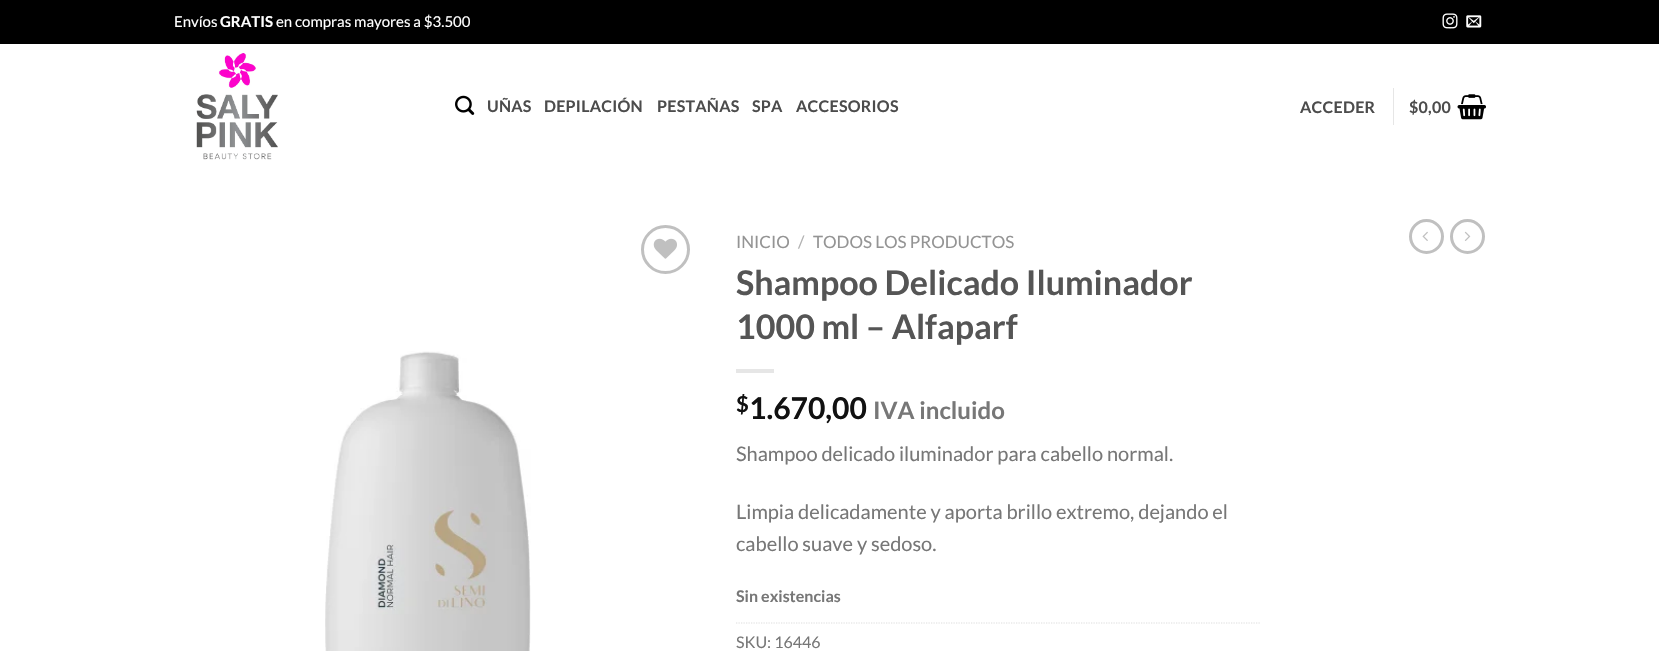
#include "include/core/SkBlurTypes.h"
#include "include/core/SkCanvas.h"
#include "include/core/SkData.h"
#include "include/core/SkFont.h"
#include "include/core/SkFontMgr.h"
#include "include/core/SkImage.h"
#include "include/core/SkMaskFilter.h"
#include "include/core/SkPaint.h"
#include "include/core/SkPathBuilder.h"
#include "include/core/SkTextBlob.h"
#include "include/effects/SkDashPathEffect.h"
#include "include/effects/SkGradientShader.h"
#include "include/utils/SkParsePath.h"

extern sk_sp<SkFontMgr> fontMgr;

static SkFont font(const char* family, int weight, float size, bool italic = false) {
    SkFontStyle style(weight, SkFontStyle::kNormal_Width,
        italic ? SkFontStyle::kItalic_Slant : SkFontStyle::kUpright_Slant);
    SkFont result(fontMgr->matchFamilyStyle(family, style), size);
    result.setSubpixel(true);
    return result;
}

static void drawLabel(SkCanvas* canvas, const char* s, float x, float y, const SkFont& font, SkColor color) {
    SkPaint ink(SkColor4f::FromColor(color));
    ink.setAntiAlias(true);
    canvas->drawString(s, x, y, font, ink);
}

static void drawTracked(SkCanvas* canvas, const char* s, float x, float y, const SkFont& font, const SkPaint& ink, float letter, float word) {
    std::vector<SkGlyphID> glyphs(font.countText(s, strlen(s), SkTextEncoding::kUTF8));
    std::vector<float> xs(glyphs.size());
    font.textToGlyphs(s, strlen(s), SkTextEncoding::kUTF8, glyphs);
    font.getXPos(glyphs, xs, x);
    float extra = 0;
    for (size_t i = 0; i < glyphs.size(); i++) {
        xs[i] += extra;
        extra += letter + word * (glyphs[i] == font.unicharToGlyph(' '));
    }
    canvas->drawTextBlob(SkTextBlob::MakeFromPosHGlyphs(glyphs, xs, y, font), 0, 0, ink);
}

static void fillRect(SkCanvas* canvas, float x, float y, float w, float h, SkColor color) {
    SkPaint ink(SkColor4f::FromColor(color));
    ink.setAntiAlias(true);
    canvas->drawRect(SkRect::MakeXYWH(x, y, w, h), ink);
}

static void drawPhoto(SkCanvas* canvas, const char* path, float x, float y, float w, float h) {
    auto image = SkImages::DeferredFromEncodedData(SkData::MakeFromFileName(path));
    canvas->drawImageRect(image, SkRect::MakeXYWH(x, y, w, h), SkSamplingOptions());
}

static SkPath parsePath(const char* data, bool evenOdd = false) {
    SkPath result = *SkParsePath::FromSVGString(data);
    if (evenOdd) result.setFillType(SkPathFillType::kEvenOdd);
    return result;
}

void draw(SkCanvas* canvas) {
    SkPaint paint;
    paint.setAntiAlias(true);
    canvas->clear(0xFFFFFFFF);
    fillRect(canvas, 0, 0, 1659, 44, 0xFF000000);
    SkFont font1 = font("Lato", 400, 15);
    drawLabel(canvas, "Envíos", 174, 27, font1, 0xFFFFFFFF);
    SkFont font2 = font("Lato", 700, 15);
    drawLabel(canvas, "GRATIS", 220, 27, font2, 0xFFFFFFFF);
    drawLabel(canvas, "en compras mayores a $3.500", 276, 27, font1, 0xFFFFFFFF);
    drawPhoto(canvas, "assets/img1.png", 1442, 13, 16, 16);
    drawPhoto(canvas, "assets/img2.png", 1466, 15, 16, 13);
    drawPhoto(canvas, "assets/img3.png", 196, 53, 82, 107);
    drawPhoto(canvas, "assets/img4.png", 455, 95, 20, 20);
    SkFont font3 = font("Lato", 700, 16);
    paint.setColor(0xFF4C4C4C);
    drawTracked(canvas, "UÑAS", 487, 112, font3, paint, 0.25f, 0);
    drawTracked(canvas, "DEPILACIÓN", 544, 112, font3, paint, 0.25f, 0);
    drawTracked(canvas, "PESTAÑAS", 657, 112, font3, paint, 0.25f, 0);
    drawTracked(canvas, "SPA", 752, 112, font3, paint, 0.25f, 0);
    drawTracked(canvas, "ACCESORIOS", 796, 112, font3, paint, 0.25f, 0);
    drawTracked(canvas, "ACCEDER", 1300, 113, font3, paint, 0.25f, 0);
    fillRect(canvas, 1393, 88, 1, 37, 0xFFE6E6E6);
    drawTracked(canvas, "$0,00", 1409, 113, font3, paint, 0.25f, 0);
    drawPhoto(canvas, "assets/img5.png", 1457, 94, 29, 26);
    paint.setStroke(true);
    paint.setStrokeWidth(3);
    paint.setColor(0xFFC0C0C0);
    canvas->drawCircle(665.5f, 249.5f, 23, paint);
    drawPhoto(canvas, "assets/img6.png", 653, 238, 24, 21);
    drawPhoto(canvas, "assets/img7.png", 325, 351, 206, 300);
    SkFont font4 = font("Lato", 400, 17);
    drawLabel(canvas, "INICIO", 736, 248, font4, 0xFF949494);
    drawLabel(canvas, "/", 798, 248, font4, 0xFFB2B2B2);
    drawLabel(canvas, "TODOS LOS PRODUCTOS", 813, 248, font4, 0xFF949494);
    SkFont font5 = font("Lato", 700, 34);
    drawLabel(canvas, "Shampoo Delicado Iluminador", 736, 295, font5, 0xFF555555);
    drawLabel(canvas, "1000 ml – Alfaparf", 736, 339, font5, 0xFF555555);
    fillRect(canvas, 736, 369, 38, 4, 0xFFE6E6E6);
    SkFont font6 = font("Lato", 700, 22);
    drawLabel(canvas, "$", 736, 412, font6, 0xFF111111);
    SkFont font7 = font("Lato", 700, 30);
    drawLabel(canvas, "1.670,00", 749, 419, font7, 0xFF111111);
    SkFont font8 = font("Lato", 700, 24);
    drawLabel(canvas, "IVA incluido", 873, 419, font8, 0xFF777777);
    SkFont font9 = font("Lato", 400, 20);
    drawLabel(canvas, "Shampoo delicado iluminador para cabello normal.", 736, 461, font9, 0xFF777777);
    drawLabel(canvas, "Limpia delicadamente y aporta brillo extremo, dejando el", 736, 519, font9, 0xFF777777);
    drawLabel(canvas, "cabello suave y sedoso.", 736, 551, font9, 0xFF777777);
    drawLabel(canvas, "Sin existencias", 736, 602, font3, 0xFF777777);
    paint.setStrokeWidth(1.2f);
    paint.setColor(0xFFDDDDDD);
    paint.setPathEffect(SkDashPathEffect::Make({{1.25f, 1.25f}}, 0));
    canvas->drawPath(parsePath("M736 623H1261"), paint);
    paint.setPathEffect(nullptr);
    SkFont font10 = font("Lato", 400, 16);
    drawLabel(canvas, "SKU: 16446", 736, 648, font10, 0xFF777777);
    paint.setStrokeWidth(3);
    paint.setColor(0xFFC0C0C0);
    canvas->drawCircle(1426.5f, 236.5f, 16, paint);
    drawPhoto(canvas, "assets/img8.png", 1422, 231, 6, 10);
    canvas->drawCircle(1467.5f, 236.5f, 16, paint);
    drawPhoto(canvas, "assets/img9.png", 1464, 231, 7, 10);
}
